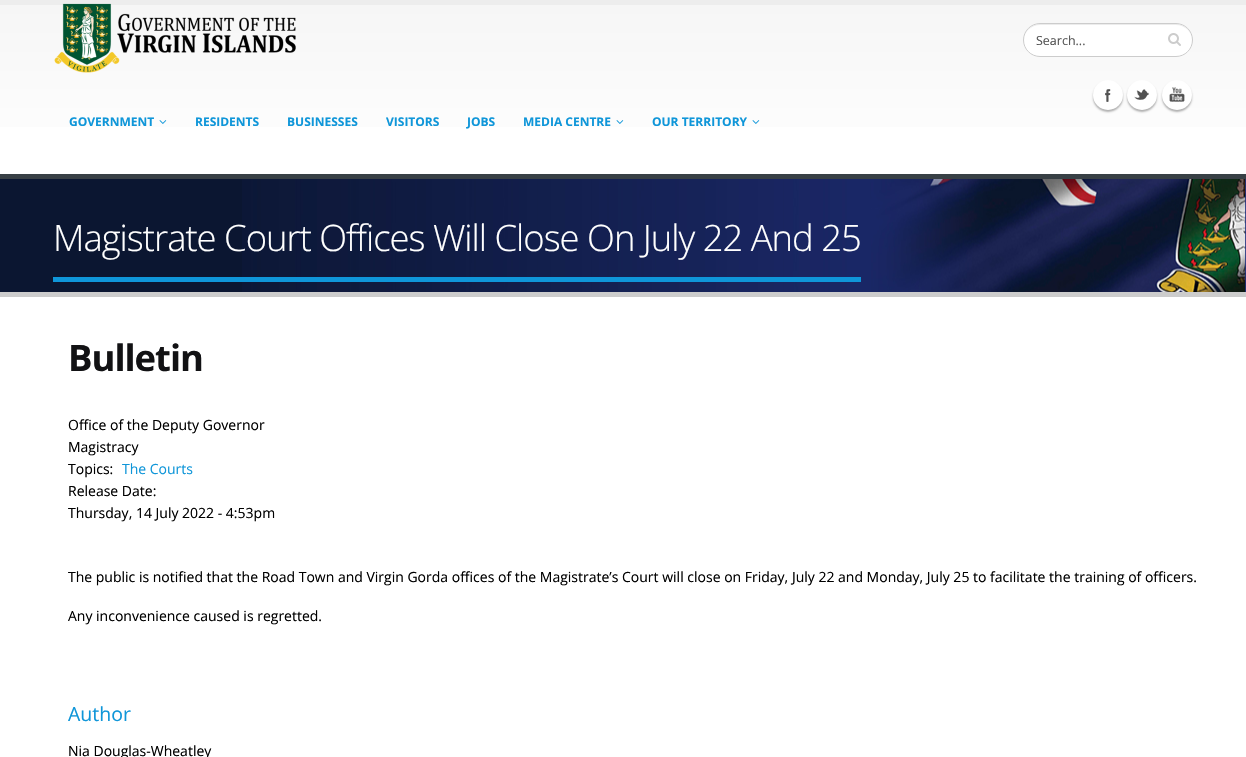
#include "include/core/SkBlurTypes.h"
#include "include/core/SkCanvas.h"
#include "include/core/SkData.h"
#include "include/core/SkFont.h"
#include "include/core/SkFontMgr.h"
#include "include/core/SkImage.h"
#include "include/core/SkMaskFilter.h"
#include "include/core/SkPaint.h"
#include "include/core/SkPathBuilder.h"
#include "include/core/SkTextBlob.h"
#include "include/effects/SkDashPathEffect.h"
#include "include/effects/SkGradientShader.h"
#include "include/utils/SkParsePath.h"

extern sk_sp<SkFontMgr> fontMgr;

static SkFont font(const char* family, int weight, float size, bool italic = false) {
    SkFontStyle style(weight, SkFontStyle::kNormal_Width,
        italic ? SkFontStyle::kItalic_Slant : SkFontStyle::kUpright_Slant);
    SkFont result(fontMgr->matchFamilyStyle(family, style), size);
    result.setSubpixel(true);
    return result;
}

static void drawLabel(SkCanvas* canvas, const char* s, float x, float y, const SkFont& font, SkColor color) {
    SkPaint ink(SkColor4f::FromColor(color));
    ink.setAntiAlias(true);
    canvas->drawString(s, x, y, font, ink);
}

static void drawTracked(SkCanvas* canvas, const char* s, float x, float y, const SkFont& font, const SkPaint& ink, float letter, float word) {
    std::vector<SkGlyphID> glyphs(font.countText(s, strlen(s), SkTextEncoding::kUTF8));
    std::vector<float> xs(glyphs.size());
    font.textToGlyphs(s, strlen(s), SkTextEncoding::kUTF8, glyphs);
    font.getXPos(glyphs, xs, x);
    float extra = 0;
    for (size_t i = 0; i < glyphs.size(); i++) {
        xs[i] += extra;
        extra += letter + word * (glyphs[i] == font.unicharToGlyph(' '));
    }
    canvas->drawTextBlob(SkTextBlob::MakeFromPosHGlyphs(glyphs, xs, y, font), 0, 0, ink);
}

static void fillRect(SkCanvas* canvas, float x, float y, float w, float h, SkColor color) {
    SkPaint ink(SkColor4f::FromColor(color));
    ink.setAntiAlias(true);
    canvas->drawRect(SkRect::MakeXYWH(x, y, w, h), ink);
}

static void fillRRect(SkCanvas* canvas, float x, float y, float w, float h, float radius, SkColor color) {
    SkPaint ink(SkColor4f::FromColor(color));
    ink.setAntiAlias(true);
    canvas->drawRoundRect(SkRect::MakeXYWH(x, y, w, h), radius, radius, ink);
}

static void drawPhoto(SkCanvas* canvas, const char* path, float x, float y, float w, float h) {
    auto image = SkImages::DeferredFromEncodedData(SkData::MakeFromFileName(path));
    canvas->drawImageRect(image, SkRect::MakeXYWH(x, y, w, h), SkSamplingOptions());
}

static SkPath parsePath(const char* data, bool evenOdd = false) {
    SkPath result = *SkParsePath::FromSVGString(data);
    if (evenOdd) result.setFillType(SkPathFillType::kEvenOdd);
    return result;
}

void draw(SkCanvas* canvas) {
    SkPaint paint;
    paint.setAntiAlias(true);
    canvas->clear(0xFFFFFFFF);
    {
        const SkColor colors[] = {0xFFF6F6F6, 0xFFFFFFFF};
        const float stops[] = {0, 1};
        const SkPoint ends[] = {{623, 5}, {623, 174}};
        paint.setShader(SkGradientShader::MakeLinear(ends, colors, stops, 2, SkTileMode::kClamp));
        paint.setAlpha(255);
    }
    canvas->drawRect(SkRect::MakeXYWH(0, 5, 1246, 122), paint);
    fillRect(canvas, 0, 0, 1246, 5, 0xFFEDEDED);
    drawPhoto(canvas, "assets/img1.png", 54, 3, 242, 70);
    fillRRect(canvas, 1023, 23, 170, 34, 17, 0xFFFFFFFF);
    paint.setShader(nullptr);
    paint.setColor(0xFFECECEC);
    canvas->drawPath(parsePath("M1040 25H1176C1185 25 1192 32 1192 40C1192 31 1185 24 1176 24H1040C1031 24 1024 31 1024 40C1024 32 1031 25 1040 25Z"), paint);
    paint.setStroke(true);
    paint.setStrokeWidth(1);
    paint.setColor(0xFFCCCCCC);
    canvas->drawRoundRect(SkRect::MakeXYWH(1023.5f, 23.5f, 169, 33), 16.5f, 16.5f, paint);
    SkFont font1 = font("Open Sans", 400, 12.5f);
    drawLabel(canvas, "Search...", 1036, 45, font1, 0xFF555555);
    drawPhoto(canvas, "assets/img2.png", 1168, 33, 13, 13);
    paint.setStroke(false);
    paint.setColor(0x4D000000);
    paint.setMaskFilter(SkMaskFilter::MakeBlur(kNormal_SkBlurStyle, 1));
    canvas->drawRoundRect(SkRect::MakeXYWH(1093, 82, 30, 30), 15, 15, paint);
    paint.setMaskFilter(nullptr);
    paint.setColor(0xFFFFFFFF);
    canvas->drawCircle(1108, 95, 15, paint);
    drawPhoto(canvas, "assets/img3.png", 1105, 89, 6, 13);
    paint.setColor(0x4D000000);
    paint.setMaskFilter(SkMaskFilter::MakeBlur(kNormal_SkBlurStyle, 1));
    canvas->drawRoundRect(SkRect::MakeXYWH(1127, 82, 30, 30), 15, 15, paint);
    paint.setMaskFilter(nullptr);
    paint.setColor(0xFFFFFFFF);
    canvas->drawCircle(1142, 95, 15, paint);
    drawPhoto(canvas, "assets/img4.png", 1134, 89, 15, 11);
    paint.setColor(0x4D000000);
    paint.setMaskFilter(SkMaskFilter::MakeBlur(kNormal_SkBlurStyle, 1));
    canvas->drawRoundRect(SkRect::MakeXYWH(1162, 82, 30, 30), 15, 15, paint);
    paint.setMaskFilter(nullptr);
    paint.setColor(0xFFFFFFFF);
    canvas->drawCircle(1177, 95, 15, paint);
    drawPhoto(canvas, "assets/img5.png", 1169, 87, 16, 15);
    SkFont font2 = font("Open Sans", 700, 12);
    drawLabel(canvas, "GOVERNMENT", 69, 126, font2, 0xFF0F96D9);
    drawPhoto(canvas, "assets/img6.png", 159, 120, 8, 4);
    drawLabel(canvas, "RESIDENTS", 195, 126, font2, 0xFF0F96D9);
    drawLabel(canvas, "BUSINESSES", 287, 126, font2, 0xFF0F96D9);
    drawLabel(canvas, "VISITORS", 386, 126, font2, 0xFF0F96D9);
    drawLabel(canvas, "JOBS", 467, 126, font2, 0xFF0F96D9);
    drawLabel(canvas, "MEDIA CENTRE", 523, 126, font2, 0xFF0F96D9);
    drawPhoto(canvas, "assets/img6.png", 616, 120, 8, 4);
    drawLabel(canvas, "OUR TERRITORY", 652, 126, font2, 0xFF0F96D9);
    drawPhoto(canvas, "assets/img6.png", 752, 120, 8, 4);
    fillRect(canvas, 0, 179, 242, 113, 0xFF0B1631);
    drawPhoto(canvas, "assets/img7.png", 242, 179, 1004, 113);
    fillRect(canvas, 0, 174, 1246, 5, 0xFF384045);
    fillRect(canvas, 0, 292, 1246, 5, 0xFFCCCCCC);
    fillRect(canvas, 53, 277, 808, 5, 0xFF0F96D9);
    SkFont font3 = font("Open Sans", 300, 36.4f);
    drawTracked(canvas, "Magistrate Court Offices Will Close On July 22 And 25", 53, 251, font3, paint, -1, 0);
    SkFont font4 = font("Open Sans", 700, 36.4f);
    paint.setColor(0xFF121214);
    drawTracked(canvas, "Bulletin", 68, 371, font4, paint, -1, 0);
    SkFont font5 = font("Open Sans", 400, 14);
    drawLabel(canvas, "Office of the Deputy Governor", 68, 430, font5, 0xFF000000);
    drawLabel(canvas, "Magistracy", 68, 452, font5, 0xFF000000);
    drawLabel(canvas, "Topics:", 68, 474, font5, 0xFF000000);
    drawLabel(canvas, "The Courts", 122, 474, font5, 0xFF0F96D9);
    drawLabel(canvas, "Release Date:", 68, 496, font5, 0xFF000000);
    drawLabel(canvas, "Thursday, 14 July 2022 - 4:53pm", 68, 518, font5, 0xFF000000);
    drawLabel(canvas, "The public is notified that the Road Town and Virgin Gorda offices of the Magistrate’s Court will close on Friday, July 22 and Monday, July 25 to facilitate the training of officers.", 68, 582, font5, 0xFF000000);
    drawLabel(canvas, "Any inconvenience caused is regretted.", 68, 621, font5, 0xFF000000);
    SkFont font6 = font("Open Sans", 400, 19.5f);
    drawLabel(canvas, "Author", 68, 721, font6, 0xFF0F96D9);
    drawLabel(canvas, "Nia Douglas-Wheatley", 68, 756, font5, 0xFF000000);
}
